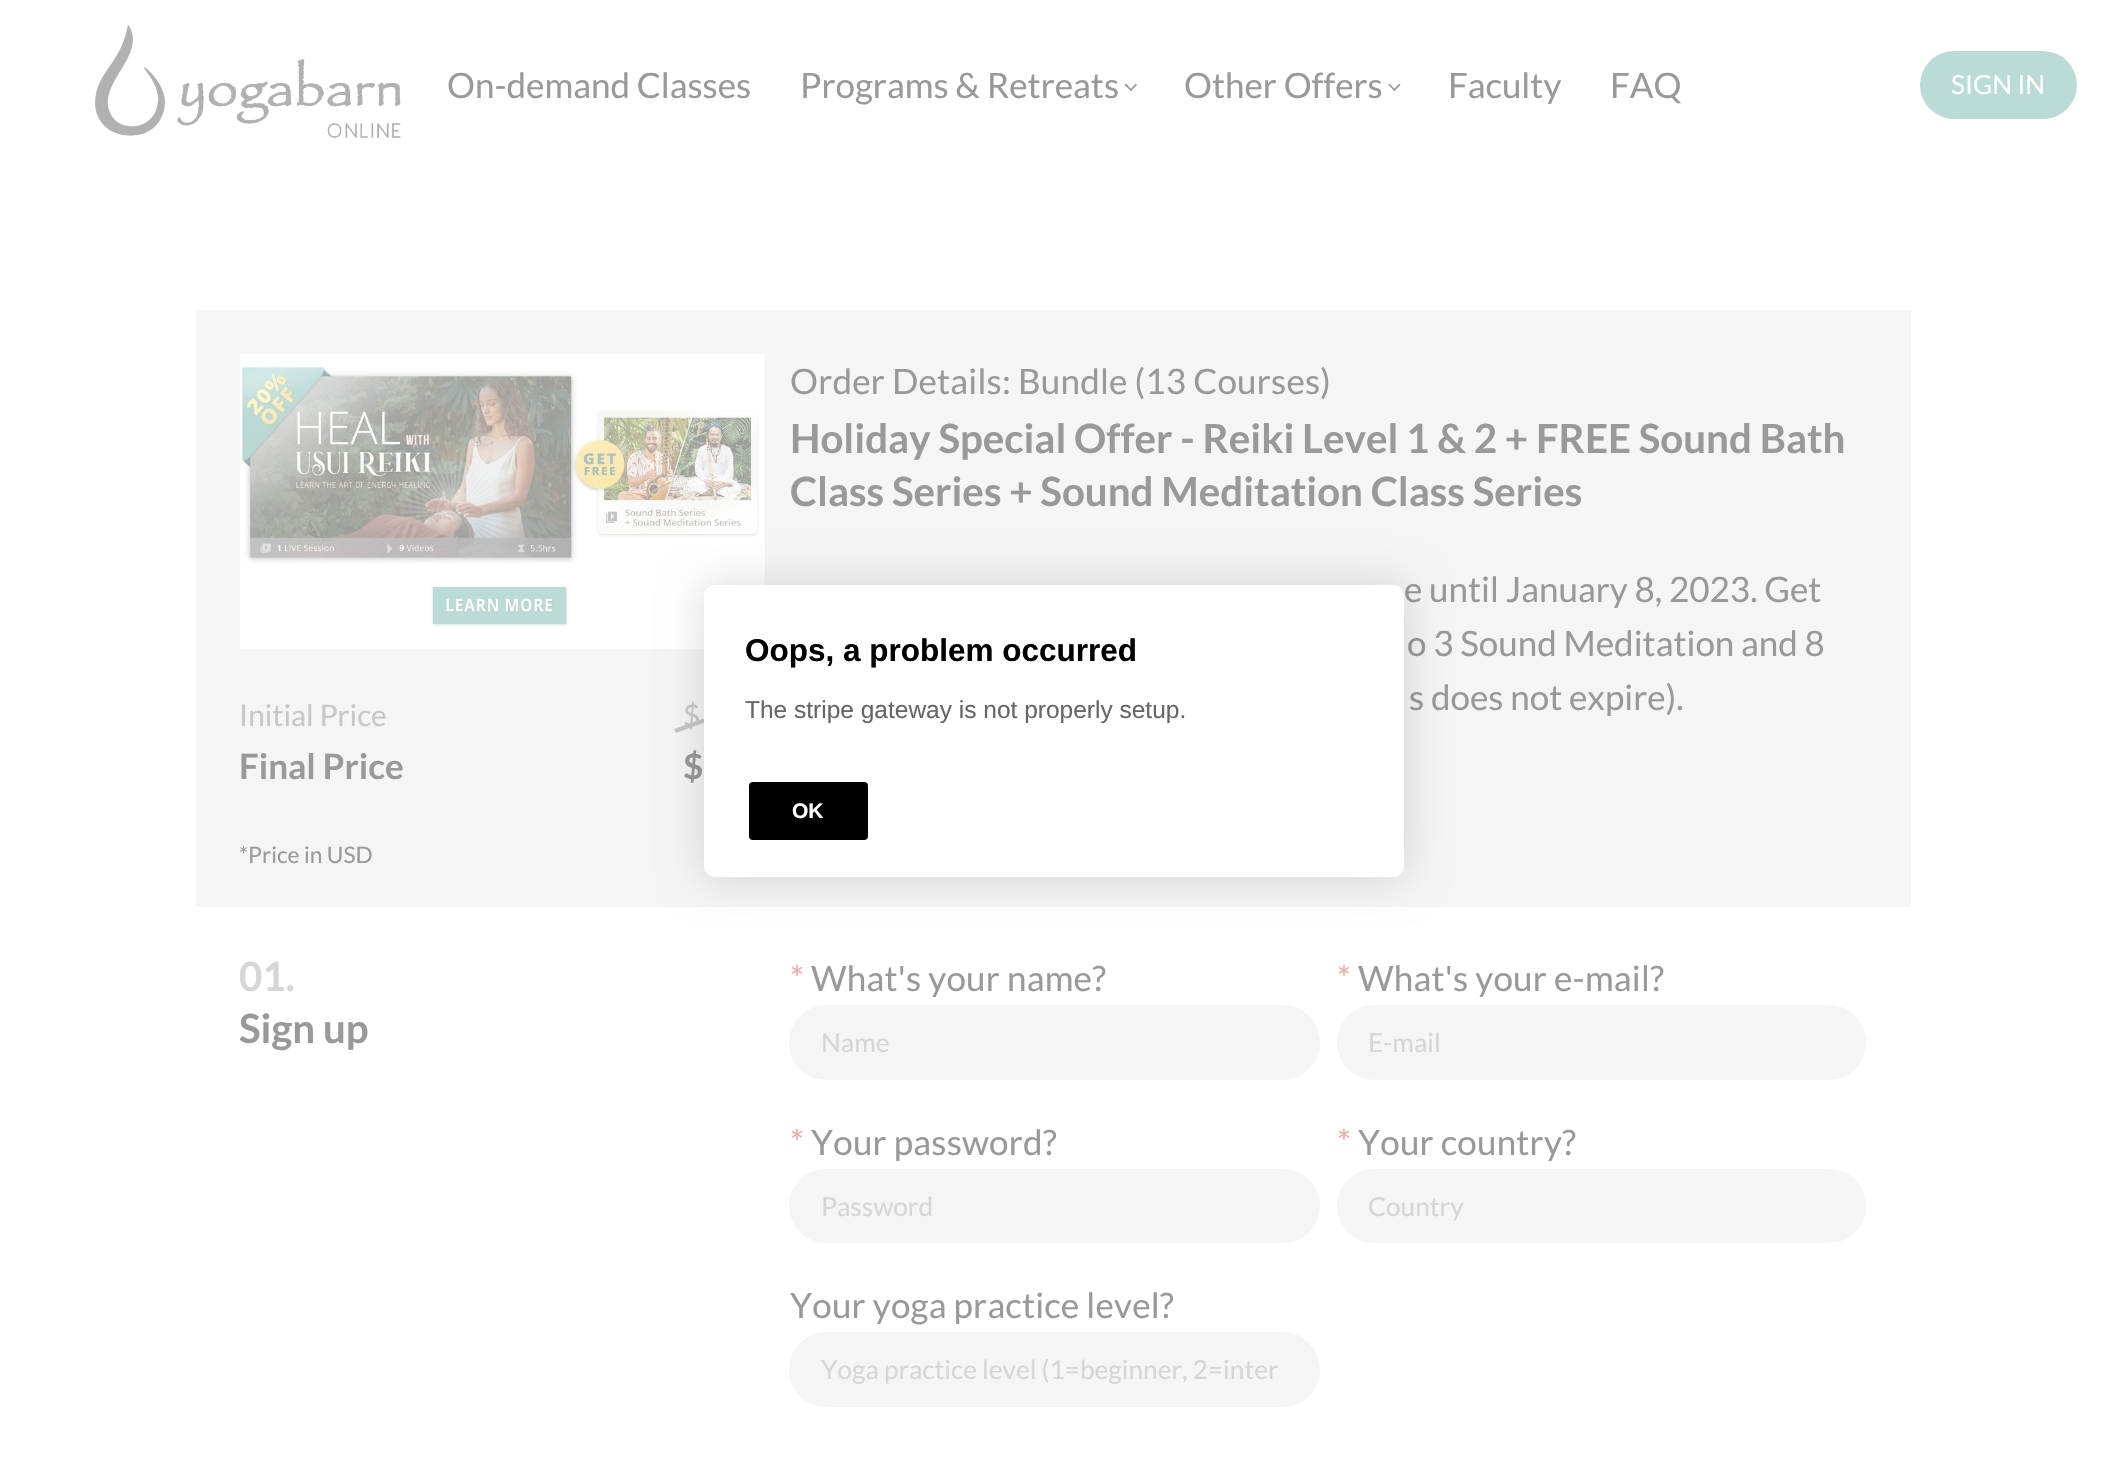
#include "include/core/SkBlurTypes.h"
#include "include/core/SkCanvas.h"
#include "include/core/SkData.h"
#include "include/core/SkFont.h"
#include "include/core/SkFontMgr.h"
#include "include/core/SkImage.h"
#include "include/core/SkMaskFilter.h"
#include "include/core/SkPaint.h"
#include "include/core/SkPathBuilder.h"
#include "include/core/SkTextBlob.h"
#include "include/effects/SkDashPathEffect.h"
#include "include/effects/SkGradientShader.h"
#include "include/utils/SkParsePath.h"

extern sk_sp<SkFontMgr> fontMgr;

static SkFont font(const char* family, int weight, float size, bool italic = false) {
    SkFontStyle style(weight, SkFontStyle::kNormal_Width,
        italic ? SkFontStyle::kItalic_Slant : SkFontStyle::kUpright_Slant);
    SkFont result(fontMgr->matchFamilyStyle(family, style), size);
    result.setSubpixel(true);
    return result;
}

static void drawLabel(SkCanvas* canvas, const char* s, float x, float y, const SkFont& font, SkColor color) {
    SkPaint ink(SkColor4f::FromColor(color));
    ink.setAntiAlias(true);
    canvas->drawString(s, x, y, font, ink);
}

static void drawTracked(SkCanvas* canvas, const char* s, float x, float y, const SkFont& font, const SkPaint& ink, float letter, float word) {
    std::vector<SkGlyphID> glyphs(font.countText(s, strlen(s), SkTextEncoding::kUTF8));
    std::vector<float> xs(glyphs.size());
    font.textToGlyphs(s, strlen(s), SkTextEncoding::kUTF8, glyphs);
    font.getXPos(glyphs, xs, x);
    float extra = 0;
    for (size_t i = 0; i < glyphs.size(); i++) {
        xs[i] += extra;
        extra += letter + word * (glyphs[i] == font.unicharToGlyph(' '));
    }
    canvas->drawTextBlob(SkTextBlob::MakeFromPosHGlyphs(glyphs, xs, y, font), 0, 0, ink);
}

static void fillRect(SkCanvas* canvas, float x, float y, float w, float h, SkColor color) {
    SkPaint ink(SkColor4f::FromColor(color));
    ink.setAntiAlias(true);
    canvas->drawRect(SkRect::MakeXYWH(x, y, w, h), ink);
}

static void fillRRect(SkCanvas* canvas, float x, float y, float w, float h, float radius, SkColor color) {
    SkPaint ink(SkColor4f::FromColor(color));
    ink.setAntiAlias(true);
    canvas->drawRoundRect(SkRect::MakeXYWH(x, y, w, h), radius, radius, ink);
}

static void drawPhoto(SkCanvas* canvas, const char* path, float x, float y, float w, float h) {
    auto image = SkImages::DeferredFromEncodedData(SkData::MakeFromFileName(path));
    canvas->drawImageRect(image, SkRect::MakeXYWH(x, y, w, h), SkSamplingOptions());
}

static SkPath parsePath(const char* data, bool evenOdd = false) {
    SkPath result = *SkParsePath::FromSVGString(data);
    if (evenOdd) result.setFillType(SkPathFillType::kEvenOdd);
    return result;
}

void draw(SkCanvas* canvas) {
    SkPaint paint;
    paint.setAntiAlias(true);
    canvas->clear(0xFFFFFFFF);
    drawPhoto(canvas, "assets/img1.png", 95, 24, 306, 114);
    SkFont font1 = font("Lato", 400, 35);
    drawLabel(canvas, "On-demand Classes", 447, 98, font1, 0xFF999999);
    drawLabel(canvas, "Programs & Retreats", 800, 98, font1, 0xFF999999);
    paint.setColor(0xFF999999);
    canvas->drawPath(parsePath("M1137 85L1131 91L1129.5 90L1136 83.5Z"), paint);
    canvas->drawPath(parsePath("M1132 90L1131 91L1124.5 85L1126 83.5Z"), paint);
    drawLabel(canvas, "Other Offers", 1184, 98, font1, 0xFF999999);
    canvas->drawPath(parsePath("M1400.5 85L1394.5 91L1393 90L1399.5 83.5Z"), paint);
    canvas->drawPath(parsePath("M1395.5 90L1394.5 91L1388.5 85L1389.5 83.5Z"), paint);
    drawLabel(canvas, "Faculty", 1448, 98, font1, 0xFF999999);
    drawLabel(canvas, "FAQ", 1610, 98, font1, 0xFF999999);
    fillRRect(canvas, 1920, 51, 157, 68, 34, 0xFFBBDBD7);
    SkFont font2 = font("Lato", 400, 26.25f);
    drawLabel(canvas, "SIGN IN", 1951, 94, font2, 0xFFFFFFFF);
    fillRect(canvas, 196, 310, 1715, 597, 0xFFF5F5F5);
    drawTracked(canvas, "Order Details: Bundle (13 Courses)", 790, 394, font1, paint, 0.2f, 0);
    SkFont font3 = font("Lato", 700, 40.25f);
    drawLabel(canvas, "Holiday Special Offer - Reiki Level 1 & 2 + FREE Sound Bath", 790, 453, font3, 0xFF999999);
    drawLabel(canvas, "Class Series + Sound Meditation Class Series", 790, 506, font3, 0xFF999999);
    drawLabel(canvas, "e until January 8, 2023. Get", 1404, 602, font1, 0xFF999999);
    drawLabel(canvas, "o 3 Sound Meditation and 8", 1407, 656, font1, 0xFF999999);
    drawLabel(canvas, "s does not expire).", 1409, 710, font1, 0xFF999999);
    drawPhoto(canvas, "assets/img2.png", 239, 353, 526, 297);
    SkFont font4 = font("Lato", 400, 29.75f);
    drawLabel(canvas, "Initial Price", 239, 726, font4, 0xFFC7C7C7);
    SkFont font5 = font("Lato", 700, 35);
    drawLabel(canvas, "Final Price", 239, 779, font5, 0xFF999999);
    paint.setColor(0xFFC7C7C7);
    canvas->drawPath(parsePath("M674 729L759 699L760 702L676 733Z"), paint);
    drawLabel(canvas, "$", 683, 726, font4, 0xFFC7C7C7);
    drawLabel(canvas, "$", 683, 779, font5, 0xFF999999);
    SkFont font6 = font("Lato", 400, 22.75f);
    drawLabel(canvas, "*Price in USD", 239, 863, font6, 0xFF999999);
    drawLabel(canvas, "01.", 239, 991, font3, 0xFFD6D6D6);
    drawLabel(canvas, "Sign up", 239, 1043, font3, 0xFF999999);
    paint.setColor(0xFFEFADAD);
    drawTracked(canvas, "*", 790, 991, font1, paint, 0.2f, 0);
    paint.setColor(0xFF999999);
    drawTracked(canvas, "What's your name?", 811, 991, font1, paint, 0.2f, 0);
    paint.setColor(0xFFF5F5F5);
    canvas->drawRoundRect(SkRect::MakeXYWH(791, 1007, 527, 71), 35.5f, 35.5f, paint);
    paint.setStroke(true);
    paint.setStrokeWidth(4);
    canvas->drawRoundRect(SkRect::MakeXYWH(791, 1007, 527, 71), 35.5f, 35.5f, paint);
    drawLabel(canvas, "Name", 821, 1052, font2, 0xFFD6D6D6);
    paint.setStroke(false);
    paint.setColor(0xFFEFADAD);
    drawTracked(canvas, "*", 1337, 991, font1, paint, 0.2f, 0);
    paint.setColor(0xFF999999);
    drawTracked(canvas, "What's your e-mail?", 1358, 991, font1, paint, 0.2f, 0);
    paint.setColor(0xFFF5F5F5);
    canvas->drawRoundRect(SkRect::MakeXYWH(1339, 1007, 525, 71), 35.5f, 35.5f, paint);
    paint.setStroke(true);
    canvas->drawRoundRect(SkRect::MakeXYWH(1339, 1007, 525, 71), 35.5f, 35.5f, paint);
    drawLabel(canvas, "E-mail", 1368, 1052, font2, 0xFFD6D6D6);
    paint.setStroke(false);
    paint.setColor(0xFFEFADAD);
    drawTracked(canvas, "*", 790, 1155, font1, paint, 0.2f, 0);
    paint.setColor(0xFF999999);
    drawTracked(canvas, "Your password?", 811, 1155, font1, paint, 0.2f, 0);
    paint.setColor(0xFFF5F5F5);
    canvas->drawRoundRect(SkRect::MakeXYWH(791, 1171, 527, 70), 35, 35, paint);
    paint.setStroke(true);
    canvas->drawRoundRect(SkRect::MakeXYWH(791, 1171, 527, 70), 35, 35, paint);
    drawLabel(canvas, "Password", 821, 1216, font2, 0xFFD6D6D6);
    paint.setStroke(false);
    paint.setColor(0xFFEFADAD);
    drawTracked(canvas, "*", 1337, 1155, font1, paint, 0.2f, 0);
    paint.setColor(0xFF999999);
    drawTracked(canvas, "Your country?", 1358, 1155, font1, paint, 0.2f, 0);
    paint.setColor(0xFFF5F5F5);
    canvas->drawRoundRect(SkRect::MakeXYWH(1339, 1171, 525, 70), 35, 35, paint);
    paint.setStroke(true);
    canvas->drawRoundRect(SkRect::MakeXYWH(1339, 1171, 525, 70), 35, 35, paint);
    drawLabel(canvas, "Country", 1368, 1216, font2, 0xFFD6D6D6);
    paint.setStroke(false);
    paint.setColor(0xFF999999);
    drawTracked(canvas, "Your yoga practice level?", 790, 1318, font1, paint, 0.2f, 0);
    paint.setColor(0xFFF5F5F5);
    canvas->drawRoundRect(SkRect::MakeXYWH(791, 1334, 527, 71), 35.5f, 35.5f, paint);
    paint.setStroke(true);
    canvas->drawRoundRect(SkRect::MakeXYWH(791, 1334, 527, 71), 35.5f, 35.5f, paint);
    drawLabel(canvas, "Yoga practice level (1=beginner, 2=inter", 821, 1379, font2, 0xFFD6D6D6);
    paint.setStroke(false);
    paint.setColor(0x26000000);
    paint.setMaskFilter(SkMaskFilter::MakeBlur(kNormal_SkBlurStyle, 22));
    canvas->drawRoundRect(SkRect::MakeXYWH(704, 585, 700, 292), 11, 11, paint);
    paint.setMaskFilter(nullptr);
    fillRRect(canvas, 704, 585, 700, 292, 11, 0xFFFFFFFF);
    SkFont font7 = font("Liberation Sans", 700, 31.5f);
    drawLabel(canvas, "Oops, a problem occurred", 745, 661, font7, 0xFF000000);
    SkFont font8 = font("Liberation Sans", 400, 24.5f);
    drawLabel(canvas, "The stripe gateway is not properly setup.", 745, 718, font8, 0xFF666666);
    paint.setColor(0xFF000000);
    canvas->drawRoundRect(SkRect::MakeXYWH(750, 783, 117, 56), 3, 3, paint);
    paint.setStroke(true);
    paint.setStrokeWidth(2);
    canvas->drawRoundRect(SkRect::MakeXYWH(750, 783, 117, 56), 3, 3, paint);
    SkFont font9 = font("Liberation Sans", 700, 21);
    drawLabel(canvas, "OK", 792, 818, font9, 0xFFFFFFFF);
}
